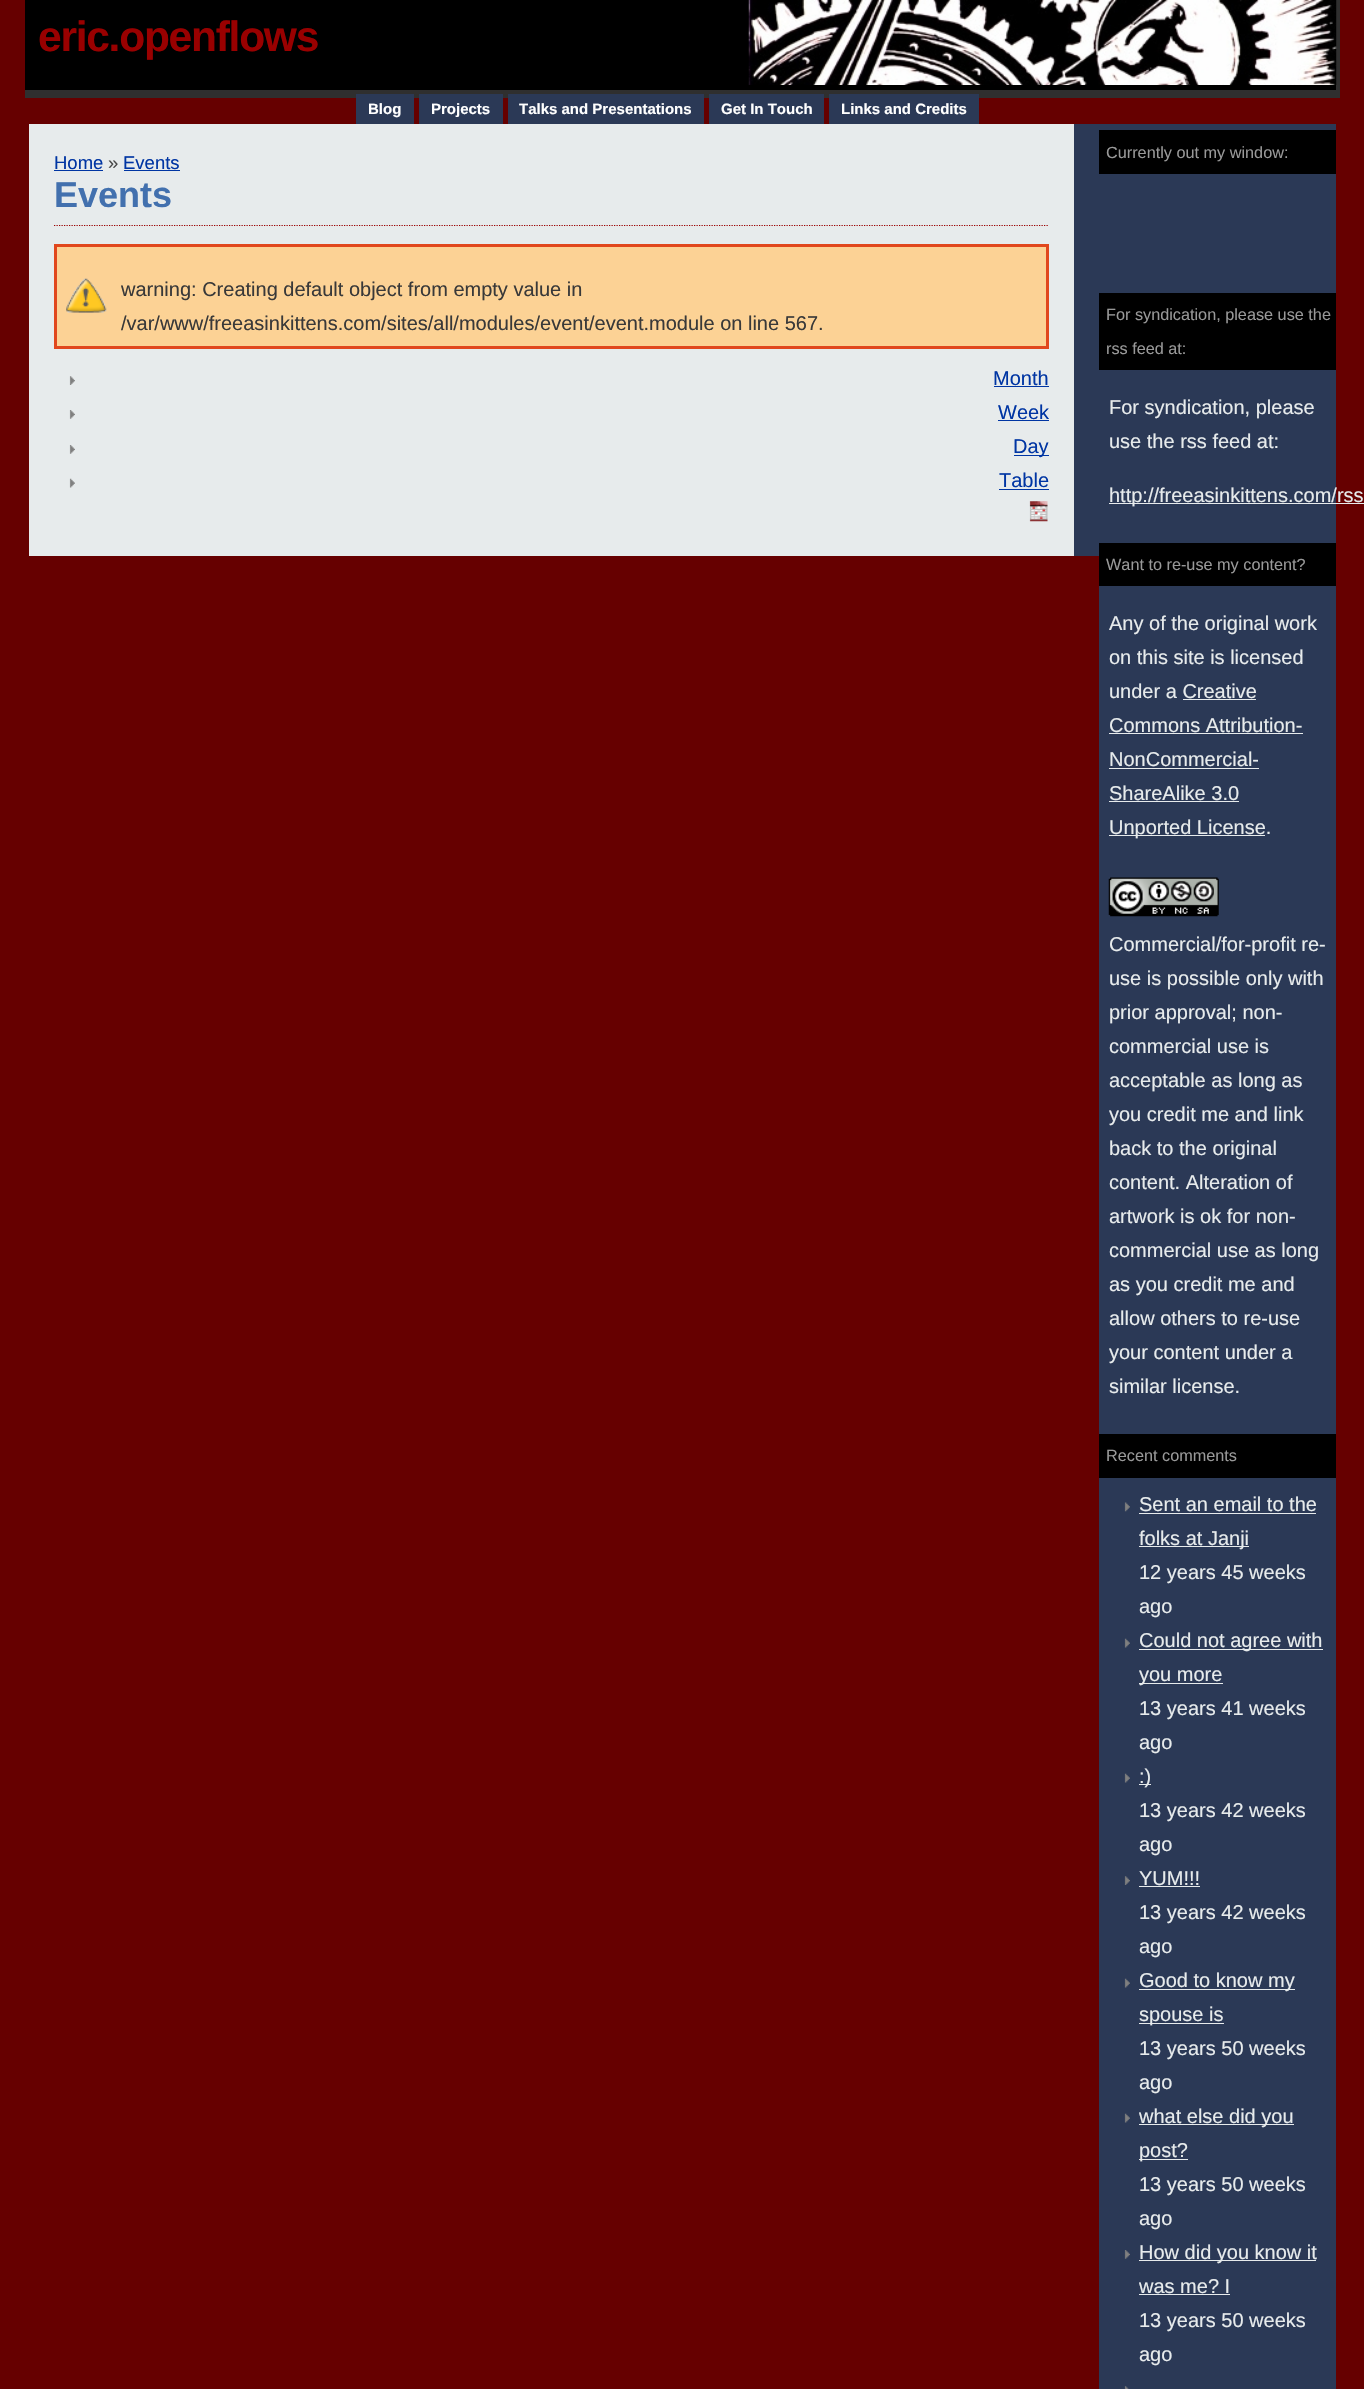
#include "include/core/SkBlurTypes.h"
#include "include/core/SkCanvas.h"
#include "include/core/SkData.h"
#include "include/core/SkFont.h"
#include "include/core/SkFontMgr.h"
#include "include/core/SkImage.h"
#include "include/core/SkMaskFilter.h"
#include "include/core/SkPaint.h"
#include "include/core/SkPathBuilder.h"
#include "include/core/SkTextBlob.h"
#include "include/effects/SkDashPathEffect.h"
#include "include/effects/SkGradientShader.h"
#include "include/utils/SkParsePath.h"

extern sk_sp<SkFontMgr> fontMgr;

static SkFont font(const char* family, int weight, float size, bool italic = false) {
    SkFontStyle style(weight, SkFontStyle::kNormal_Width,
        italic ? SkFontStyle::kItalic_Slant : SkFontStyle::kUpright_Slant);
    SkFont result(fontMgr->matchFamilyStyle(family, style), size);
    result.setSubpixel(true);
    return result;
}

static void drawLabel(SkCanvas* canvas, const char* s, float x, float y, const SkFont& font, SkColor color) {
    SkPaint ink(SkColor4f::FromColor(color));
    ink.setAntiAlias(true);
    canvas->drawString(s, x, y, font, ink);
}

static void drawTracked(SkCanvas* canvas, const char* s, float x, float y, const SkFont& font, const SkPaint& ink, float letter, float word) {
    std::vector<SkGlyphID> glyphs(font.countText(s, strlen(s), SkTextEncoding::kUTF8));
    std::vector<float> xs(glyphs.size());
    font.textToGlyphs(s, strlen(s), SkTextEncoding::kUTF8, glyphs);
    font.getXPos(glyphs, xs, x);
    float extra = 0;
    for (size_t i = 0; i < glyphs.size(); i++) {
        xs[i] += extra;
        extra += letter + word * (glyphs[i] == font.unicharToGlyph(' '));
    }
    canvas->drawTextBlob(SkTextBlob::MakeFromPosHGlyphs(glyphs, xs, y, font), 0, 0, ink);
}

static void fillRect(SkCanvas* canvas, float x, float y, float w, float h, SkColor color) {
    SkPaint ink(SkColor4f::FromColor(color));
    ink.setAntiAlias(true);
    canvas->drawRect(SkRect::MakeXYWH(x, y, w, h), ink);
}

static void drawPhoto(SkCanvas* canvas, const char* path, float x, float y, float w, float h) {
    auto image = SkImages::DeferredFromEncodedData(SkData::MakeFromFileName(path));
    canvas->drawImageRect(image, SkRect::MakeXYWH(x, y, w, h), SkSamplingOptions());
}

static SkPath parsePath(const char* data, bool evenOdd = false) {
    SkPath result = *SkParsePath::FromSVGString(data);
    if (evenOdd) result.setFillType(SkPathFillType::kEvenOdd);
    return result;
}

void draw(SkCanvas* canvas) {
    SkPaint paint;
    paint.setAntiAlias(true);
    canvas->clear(0xFF660000);
    fillRect(canvas, 25, 0, 1311, 90, 0xFF000000);
    fillRect(canvas, 1336, 0, 4, 90, 0xFF2F2F2F);
    SkFont font1 = font("Liberation Sans", 700, 42.5f);
    paint.setColor(0xFF990000);
    drawTracked(canvas, "eric.openflows", 38, 51, font1, paint, -1.25f, 0);
    drawPhoto(canvas, "assets/img1.png", 748, 0, 589, 85);
    fillRect(canvas, 25, 90, 1315, 8, 0xFF2F2F2F);
    fillRect(canvas, 356, 94, 58, 30, 0xFF2B3956);
    SkFont font2 = font("Liberation Sans", 700, 15);
    drawLabel(canvas, "Blog", 368, 114, font2, 0xFFFFFFFF);
    fillRect(canvas, 419, 94, 84, 30, 0xFF2B3956);
    drawLabel(canvas, "Projects", 431, 114, font2, 0xFFFFFFFF);
    fillRect(canvas, 508, 94, 196, 30, 0xFF2B3956);
    drawLabel(canvas, "Talks and Presentations", 519, 114, font2, 0xFFFFFFFF);
    fillRect(canvas, 709, 94, 115, 30, 0xFF2B3956);
    drawLabel(canvas, "Get In Touch", 721, 114, font2, 0xFFFFFFFF);
    fillRect(canvas, 829, 94, 150, 30, 0xFF2B3956);
    drawLabel(canvas, "Links and Credits", 841, 114, font2, 0xFFFFFFFF);
    fillRect(canvas, 29, 124, 1045, 432, 0xFFE7EBEC);
    fillRect(canvas, 1074, 124, 25, 432, 0xFF2B3956);
    SkFont font3 = font("Liberation Sans", 400, 18.5f);
    drawLabel(canvas, "Home", 54, 169, font3, 0xFF0035A3);
    fillRect(canvas, 54, 170, 49, 1, 0xFF0035A3);
    drawLabel(canvas, "»", 108, 169, font3, 0xFF494949);
    drawLabel(canvas, "Events", 123, 169, font3, 0xFF0035A3);
    fillRect(canvas, 124, 170, 56, 1, 0xFF0035A3);
    paint.setStroke(true);
    paint.setStrokeWidth(1.2f);
    paint.setPathEffect(SkDashPathEffect::Make({{1.25f, 1.25f}}, 0));
    canvas->drawPath(parsePath("M54 225.5H1049"), paint);
    paint.setPathEffect(nullptr);
    SkFont font4 = font("Liberation Sans", 700, 36);
    drawLabel(canvas, "Events", 54, 207, font4, 0xFF4270AE);
    fillRect(canvas, 57, 247, 989, 99, 0xFFFCD295);
    drawPhoto(canvas, "assets/img2.png", 66, 278, 41, 35);
    paint.setStrokeWidth(3);
    paint.setColor(0xFFE1471D);
    canvas->drawRect(SkRect::MakeXYWH(55.5f, 245.5f, 992, 102), paint);
    SkFont font5 = font("Liberation Sans", 400, 20);
    drawLabel(canvas, "warning: Creating default object from empty value in", 121, 296, font5, 0xFF393939);
    drawLabel(canvas, "/var/www/freeasinkittens.com/sites/all/modules/event/event.module on line 567.", 121, 330, font5, 0xFF393939);
    drawPhoto(canvas, "assets/img3.png", 69, 376, 6, 9);
    drawLabel(canvas, "Month", 993, 385, font5, 0xFF0035A3);
    fillRect(canvas, 994, 386, 55, 1, 0xFF0035A3);
    drawPhoto(canvas, "assets/img4.png", 69, 410, 6, 9);
    drawLabel(canvas, "Week", 998, 419, font5, 0xFF0035A3);
    fillRect(canvas, 998, 420, 51, 1, 0xFF0035A3);
    drawPhoto(canvas, "assets/img4.png", 69, 445, 6, 9);
    fillRect(canvas, 1014, 455, 35, 1, 0xFF0035A3);
    drawLabel(canvas, "Day", 1013, 453, font5, 0xFF0035A3);
    drawPhoto(canvas, "assets/img5.png", 69, 478, 6, 10);
    drawLabel(canvas, "Table", 999, 487, font5, 0xFF0035A3);
    fillRect(canvas, 999, 489, 50, 1, 0xFF0035A3);
    drawPhoto(canvas, "assets/img6.png", 1029, 501, 19, 21);
    fillRect(canvas, 1099, 124, 237, 2265, 0xFF2B3956);
    fillRect(canvas, 1099, 130, 237, 44, 0xFF000000);
    SkFont font6 = font("Liberation Sans", 400, 16.25f);
    drawLabel(canvas, "Currently out my window:", 1106, 158, font6, 0xFF999999);
    fillRect(canvas, 1099, 293, 237, 77, 0xFF000000);
    drawLabel(canvas, "For syndication, please use the", 1106, 320, font6, 0xFF999999);
    drawLabel(canvas, "rss feed at:", 1106, 354, font6, 0xFF999999);
    drawLabel(canvas, "For syndication, please", 1109, 414, font5, 0xFFE7EBEC);
    drawLabel(canvas, "use the rss feed at:", 1109, 448, font5, 0xFFE7EBEC);
    fillRect(canvas, 1109, 503, 255, 1, 0xFFE7EBEC);
    drawLabel(canvas, "http://freeasinkittens.com/rss", 1109, 502, font5, 0xFFE7EBEC);
    fillRect(canvas, 1099, 543, 237, 43, 0xFF000000);
    drawLabel(canvas, "Want to re-use my content?", 1106, 570, font6, 0xFF999999);
    drawLabel(canvas, "Any of the original work", 1109, 630, font5, 0xFFE7EBEC);
    drawLabel(canvas, "on this site is licensed", 1109, 664, font5, 0xFFE7EBEC);
    drawLabel(canvas, "under a Creative", 1109, 698, font5, 0xFFE7EBEC);
    drawLabel(canvas, "Commons Attribution-", 1109, 732, font5, 0xFFE7EBEC);
    fillRect(canvas, 1183, 699, 73, 1, 0xFFE7EBEC);
    fillRect(canvas, 1109, 733, 194, 1, 0xFFE7EBEC);
    drawLabel(canvas, "NonCommercial-", 1109, 766, font5, 0xFFE7EBEC);
    fillRect(canvas, 1109, 768, 150, 1, 0xFFE7EBEC);
    drawLabel(canvas, "ShareAlike 3.0", 1109, 800, font5, 0xFFE7EBEC);
    fillRect(canvas, 1109, 801, 130, 1, 0xFFE7EBEC);
    fillRect(canvas, 1109, 835, 156, 1, 0xFFE7EBEC);
    drawLabel(canvas, "Unported License.", 1109, 834, font5, 0xFFE7EBEC);
    drawPhoto(canvas, "assets/img7.png", 1108, 877, 111, 40);
    drawLabel(canvas, "Commercial/for-profit re-", 1109, 951, font5, 0xFFE7EBEC);
    drawLabel(canvas, "use is possible only with", 1109, 985, font5, 0xFFE7EBEC);
    drawLabel(canvas, "prior approval; non-", 1109, 1019, font5, 0xFFE7EBEC);
    drawLabel(canvas, "commercial use is", 1109, 1053, font5, 0xFFE7EBEC);
    drawLabel(canvas, "acceptable as long as", 1109, 1087, font5, 0xFFE7EBEC);
    drawLabel(canvas, "you credit me and link", 1109, 1121, font5, 0xFFE7EBEC);
    drawLabel(canvas, "back to the original", 1109, 1155, font5, 0xFFE7EBEC);
    drawLabel(canvas, "content. Alteration of", 1109, 1189, font5, 0xFFE7EBEC);
    drawLabel(canvas, "artwork is ok for non-", 1109, 1223, font5, 0xFFE7EBEC);
    drawLabel(canvas, "commercial use as long", 1109, 1257, font5, 0xFFE7EBEC);
    drawLabel(canvas, "as you credit me and", 1109, 1291, font5, 0xFFE7EBEC);
    drawLabel(canvas, "allow others to re-use", 1109, 1325, font5, 0xFFE7EBEC);
    drawLabel(canvas, "your content under a", 1109, 1359, font5, 0xFFE7EBEC);
    drawLabel(canvas, "similar license.", 1109, 1393, font5, 0xFFE7EBEC);
    fillRect(canvas, 1099, 1434, 237, 44, 0xFF000000);
    drawLabel(canvas, "Recent comments", 1106, 1461, font6, 0xFF999999);
    drawPhoto(canvas, "assets/img8.png", 1124, 1502, 6, 10);
    drawLabel(canvas, "Sent an email to the", 1139, 1511, font5, 0xFFE7EBEC);
    fillRect(canvas, 1139, 1513, 177, 1, 0xFFE7EBEC);
    fillRect(canvas, 1139, 1546, 110, 1, 0xFFE7EBEC);
    drawLabel(canvas, "folks at Janji", 1139, 1545, font5, 0xFFE7EBEC);
    drawLabel(canvas, "12 years 45 weeks", 1139, 1579, font5, 0xFFE7EBEC);
    drawLabel(canvas, "ago", 1139, 1613, font5, 0xFFE7EBEC);
    drawPhoto(canvas, "assets/img9.png", 1124, 1638, 6, 10);
    fillRect(canvas, 1139, 1649, 184, 1, 0xFFE7EBEC);
    drawLabel(canvas, "Could not agree with", 1139, 1647, font5, 0xFFE7EBEC);
    fillRect(canvas, 1139, 1683, 84, 1, 0xFFE7EBEC);
    drawLabel(canvas, "you more", 1139, 1681, font5, 0xFFE7EBEC);
    drawLabel(canvas, "13 years 41 weeks", 1139, 1715, font5, 0xFFE7EBEC);
    drawLabel(canvas, "ago", 1139, 1749, font5, 0xFFE7EBEC);
    drawPhoto(canvas, "assets/img9.png", 1124, 1773, 6, 10);
    fillRect(canvas, 1139, 1784, 12, 1, 0xFFE7EBEC);
    drawLabel(canvas, ":)", 1139, 1783, font5, 0xFFE7EBEC);
    drawLabel(canvas, "13 years 42 weeks", 1139, 1817, font5, 0xFFE7EBEC);
    drawLabel(canvas, "ago", 1139, 1851, font5, 0xFFE7EBEC);
    drawPhoto(canvas, "assets/img10.png", 1124, 1876, 6, 9);
    drawLabel(canvas, "YUM!!!", 1139, 1885, font5, 0xFFE7EBEC);
    fillRect(canvas, 1139, 1886, 61, 1, 0xFFE7EBEC);
    drawLabel(canvas, "13 years 42 weeks", 1139, 1919, font5, 0xFFE7EBEC);
    drawLabel(canvas, "ago", 1139, 1953, font5, 0xFFE7EBEC);
    drawPhoto(canvas, "assets/img9.png", 1124, 1978, 6, 10);
    fillRect(canvas, 1139, 1989, 156, 1, 0xFFE7EBEC);
    drawLabel(canvas, "Good to know my", 1139, 1987, font5, 0xFFE7EBEC);
    fillRect(canvas, 1139, 2023, 85, 1, 0xFFE7EBEC);
    drawLabel(canvas, "spouse is", 1139, 2021, font5, 0xFFE7EBEC);
    drawLabel(canvas, "13 years 50 weeks", 1139, 2055, font5, 0xFFE7EBEC);
    drawLabel(canvas, "ago", 1139, 2089, font5, 0xFFE7EBEC);
    drawPhoto(canvas, "assets/img9.png", 1124, 2113, 6, 10);
    fillRect(canvas, 1139, 2124, 155, 1, 0xFFE7EBEC);
    drawLabel(canvas, "what else did you", 1139, 2123, font5, 0xFFE7EBEC);
    fillRect(canvas, 1139, 2159, 49, 1, 0xFFE7EBEC);
    drawLabel(canvas, "post?", 1139, 2157, font5, 0xFFE7EBEC);
    drawLabel(canvas, "13 years 50 weeks", 1139, 2191, font5, 0xFFE7EBEC);
    drawLabel(canvas, "ago", 1139, 2225, font5, 0xFFE7EBEC);
    drawPhoto(canvas, "assets/img11.png", 1124, 2250, 6, 9);
    fillRect(canvas, 1139, 2260, 177, 1, 0xFFE7EBEC);
    drawLabel(canvas, "How did you know it", 1139, 2259, font5, 0xFFE7EBEC);
    drawLabel(canvas, "was me? I", 1139, 2293, font5, 0xFFE7EBEC);
    fillRect(canvas, 1139, 2294, 91, 1, 0xFFE7EBEC);
    drawLabel(canvas, "13 years 50 weeks", 1139, 2327, font5, 0xFFE7EBEC);
    drawLabel(canvas, "ago", 1139, 2361, font5, 0xFFE7EBEC);
    drawPhoto(canvas, "assets/img12.png", 1124, 2386, 5, 3);
}
